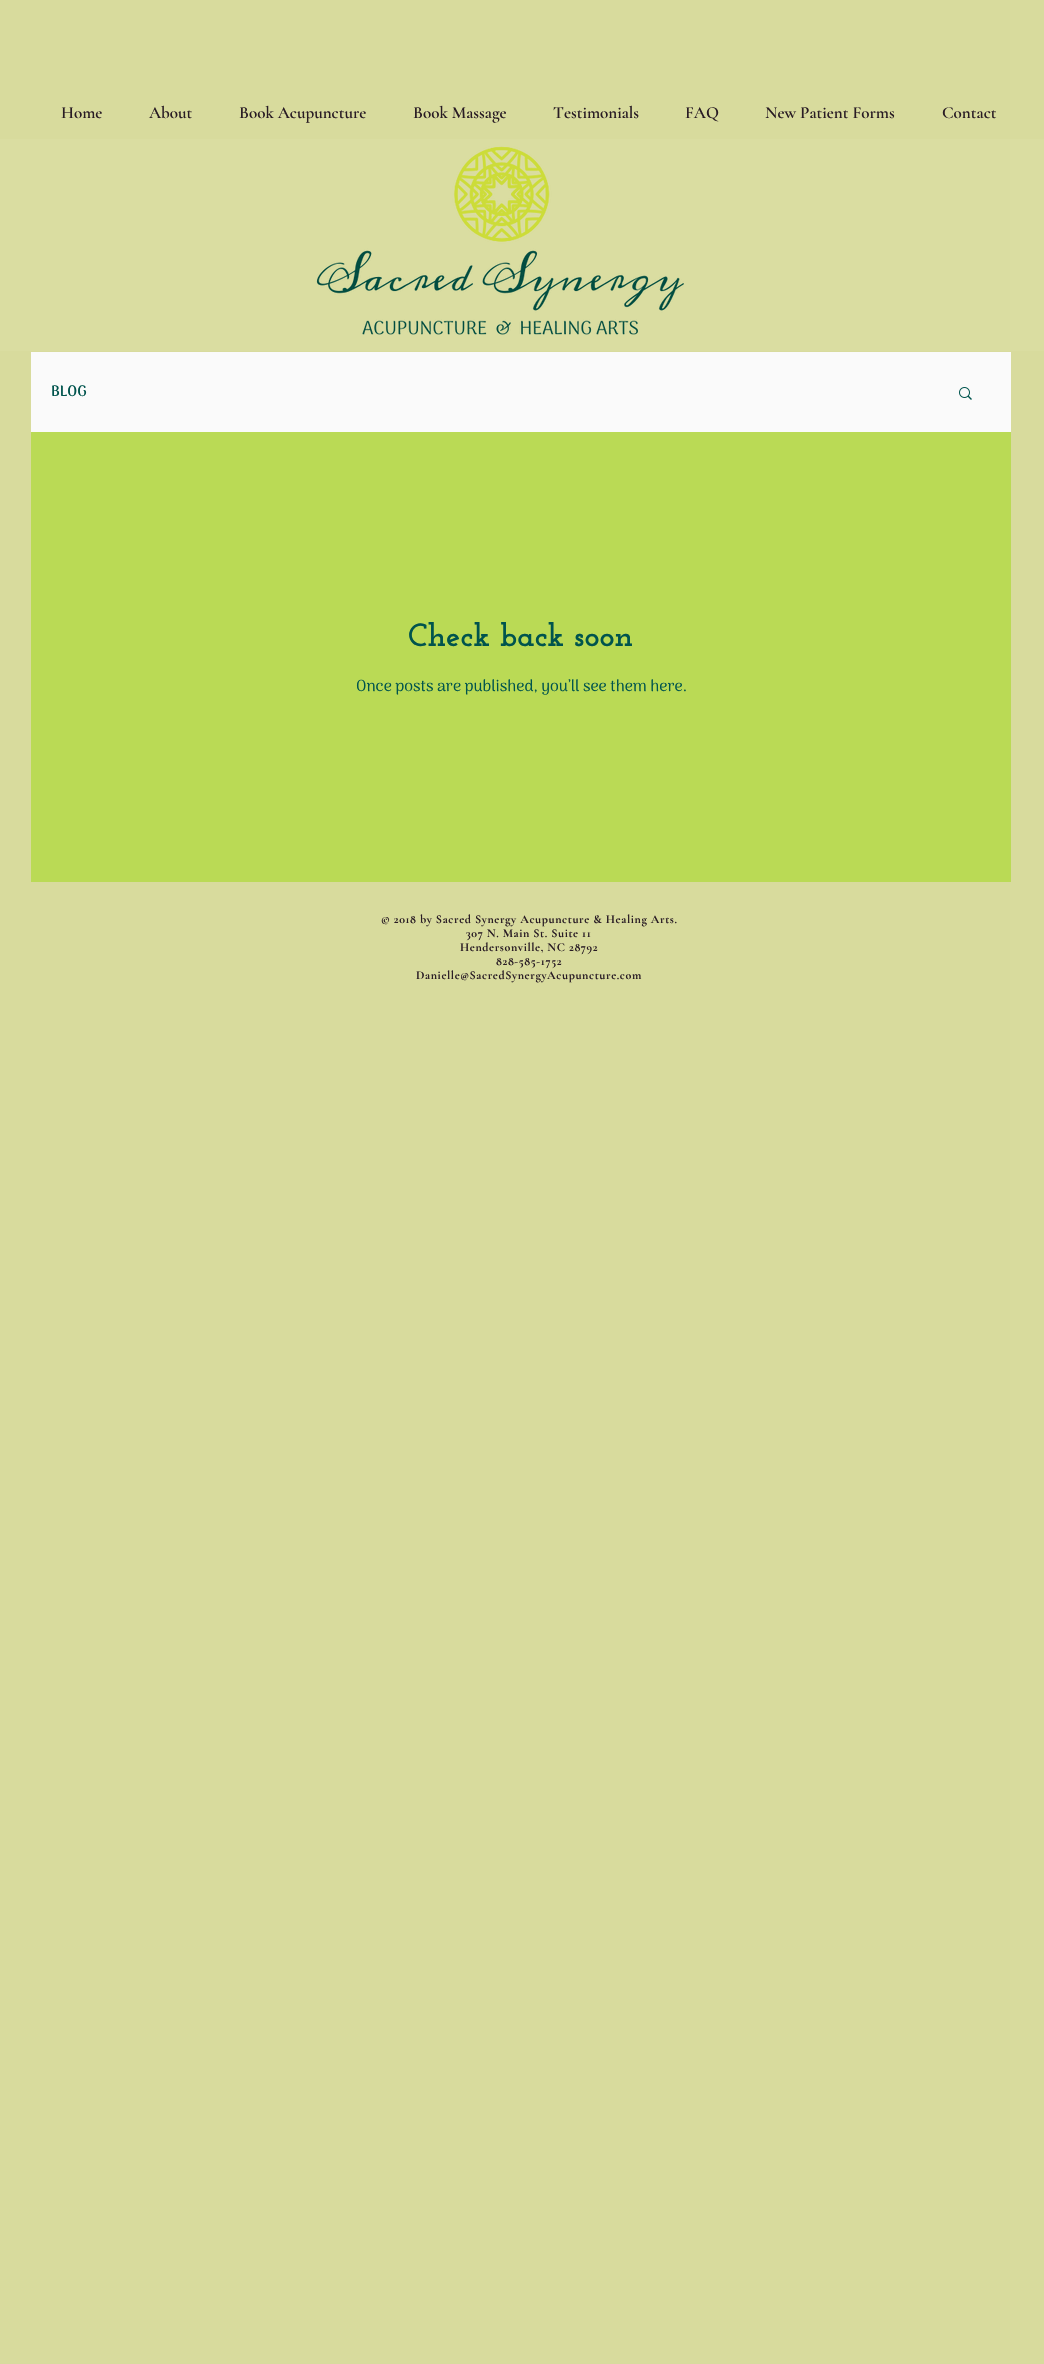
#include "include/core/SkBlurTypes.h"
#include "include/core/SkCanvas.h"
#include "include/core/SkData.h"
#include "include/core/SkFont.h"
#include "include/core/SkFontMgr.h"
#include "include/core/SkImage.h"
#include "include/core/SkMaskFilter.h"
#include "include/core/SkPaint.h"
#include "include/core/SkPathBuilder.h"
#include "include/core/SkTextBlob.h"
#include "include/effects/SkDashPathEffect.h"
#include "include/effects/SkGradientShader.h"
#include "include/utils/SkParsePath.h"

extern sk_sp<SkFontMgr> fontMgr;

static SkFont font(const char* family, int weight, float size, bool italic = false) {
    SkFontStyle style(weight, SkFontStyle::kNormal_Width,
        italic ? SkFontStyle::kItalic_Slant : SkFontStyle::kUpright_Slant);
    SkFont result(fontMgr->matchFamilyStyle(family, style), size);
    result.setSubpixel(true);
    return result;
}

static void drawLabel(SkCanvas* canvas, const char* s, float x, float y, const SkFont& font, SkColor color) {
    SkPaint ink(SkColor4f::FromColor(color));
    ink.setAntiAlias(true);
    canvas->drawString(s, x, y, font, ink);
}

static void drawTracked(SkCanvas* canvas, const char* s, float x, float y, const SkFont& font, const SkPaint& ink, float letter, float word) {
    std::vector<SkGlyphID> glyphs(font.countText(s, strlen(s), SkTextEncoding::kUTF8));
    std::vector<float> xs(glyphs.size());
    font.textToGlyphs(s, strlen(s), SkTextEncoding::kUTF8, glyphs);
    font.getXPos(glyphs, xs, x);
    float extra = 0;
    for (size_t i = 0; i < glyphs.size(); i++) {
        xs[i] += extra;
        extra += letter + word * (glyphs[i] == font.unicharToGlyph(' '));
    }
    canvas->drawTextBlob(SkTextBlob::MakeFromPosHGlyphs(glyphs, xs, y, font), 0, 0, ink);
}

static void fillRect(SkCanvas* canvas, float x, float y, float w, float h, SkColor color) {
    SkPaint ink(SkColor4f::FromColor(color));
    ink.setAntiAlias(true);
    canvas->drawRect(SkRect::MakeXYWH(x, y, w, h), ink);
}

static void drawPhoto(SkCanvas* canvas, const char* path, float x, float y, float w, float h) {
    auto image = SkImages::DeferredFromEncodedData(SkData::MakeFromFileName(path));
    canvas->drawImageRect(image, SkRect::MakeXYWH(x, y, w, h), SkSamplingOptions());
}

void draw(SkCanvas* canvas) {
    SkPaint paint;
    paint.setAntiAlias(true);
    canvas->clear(0xFFD8DB9D);
    SkFont font1 = font("Cormorant Garamond", 600, 17);
    drawLabel(canvas, "Home", 61, 118, font1, 0xFF291C24);
    drawLabel(canvas, "About", 149, 118, font1, 0xFF291C24);
    drawLabel(canvas, "Book Acupuncture", 239, 118, font1, 0xFF291C24);
    drawLabel(canvas, "Book Massage", 413, 118, font1, 0xFF291C24);
    drawLabel(canvas, "Testimonials", 553, 118, font1, 0xFF291C24);
    drawLabel(canvas, "FAQ", 685, 118, font1, 0xFF291C24);
    drawLabel(canvas, "New Patient Forms", 765, 118, font1, 0xFF291C24);
    drawLabel(canvas, "Contact", 942, 118, font1, 0xFF291C24);
    fillRect(canvas, 0, 139, 1044, 212, 0xFFDADDA1);
    drawPhoto(canvas, "assets/img1.png", 316, 146, 368, 189);
    fillRect(canvas, 31, 352, 980, 80, 0xFFFAFAFA);
    SkFont font2 = font("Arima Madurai", 700, 15);
    drawLabel(canvas, "BLOG", 51, 396, font2, 0xFF00544D);
    drawPhoto(canvas, "assets/img2.png", 959, 387, 13, 13);
    fillRect(canvas, 31, 432, 980, 450, 0xFFBADA55);
    SkFont font3 = font("Josefin Slab", 700, 32);
    drawLabel(canvas, "Check back soon", 408, 646, font3, 0xFF00544D);
    SkFont font4 = font("Arima Madurai", 400, 16);
    drawLabel(canvas, "Once posts are published, you’ll see them here.", 356, 691, font4, 0xFF00544D);
    SkFont font5 = font("Cormorant Garamond", 700, 12);
    paint.setColor(0xFF291C24);
    drawTracked(canvas, "© 2018 by Sacred Synergy Acupuncture & Healing Arts.", 381, 923, font5, paint, 0.6f, 0);
    drawTracked(canvas, "307 N. Main St. Suite 11", 466, 937, font5, paint, 0.6f, 0);
    drawTracked(canvas, "Hendersonville, NC 28792", 460, 951, font5, paint, 0.6f, 0);
    drawTracked(canvas, "828-585-1752", 496, 965, font5, paint, 0.6f, 0);
    drawTracked(canvas, "Danielle@SacredSynergyAcupuncture.com", 416, 979, font5, paint, 0.6f, 0);
}
